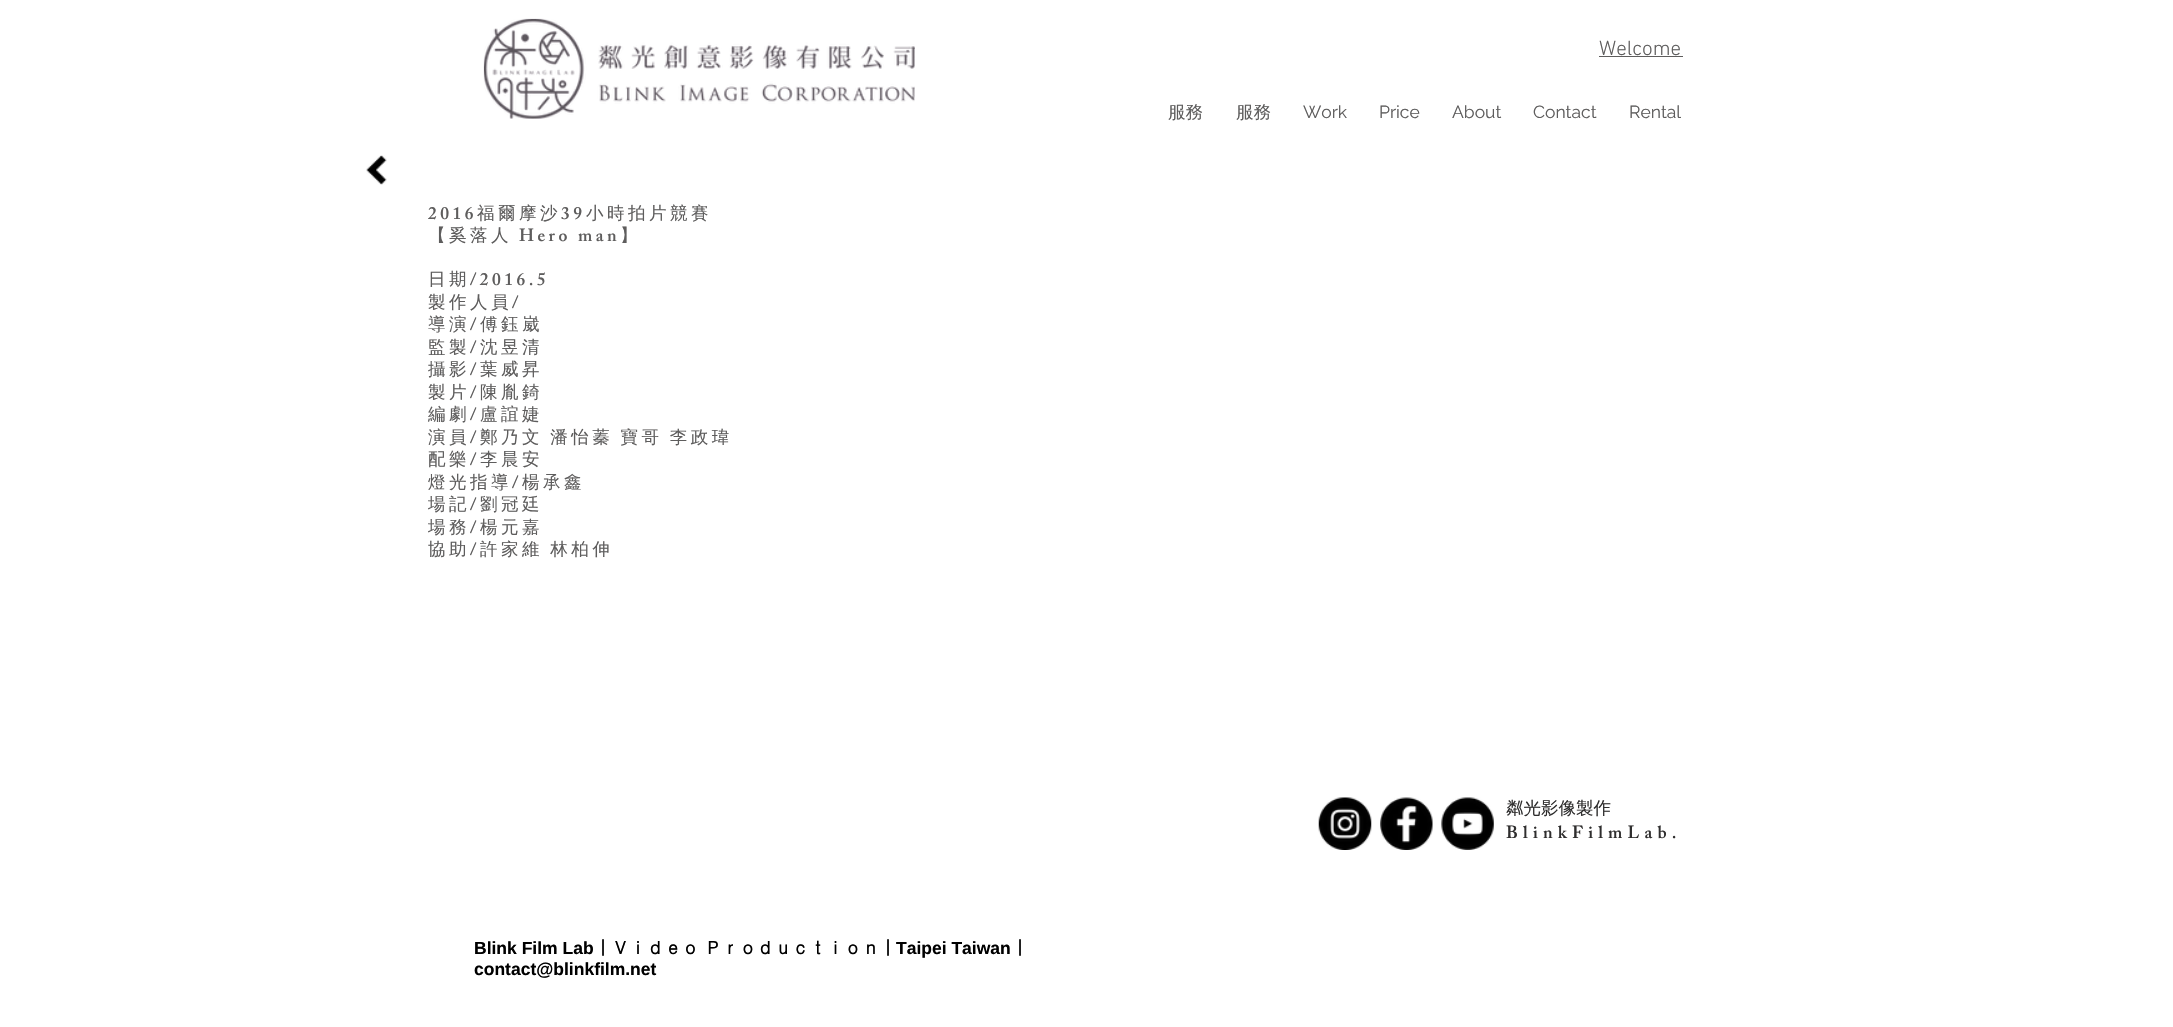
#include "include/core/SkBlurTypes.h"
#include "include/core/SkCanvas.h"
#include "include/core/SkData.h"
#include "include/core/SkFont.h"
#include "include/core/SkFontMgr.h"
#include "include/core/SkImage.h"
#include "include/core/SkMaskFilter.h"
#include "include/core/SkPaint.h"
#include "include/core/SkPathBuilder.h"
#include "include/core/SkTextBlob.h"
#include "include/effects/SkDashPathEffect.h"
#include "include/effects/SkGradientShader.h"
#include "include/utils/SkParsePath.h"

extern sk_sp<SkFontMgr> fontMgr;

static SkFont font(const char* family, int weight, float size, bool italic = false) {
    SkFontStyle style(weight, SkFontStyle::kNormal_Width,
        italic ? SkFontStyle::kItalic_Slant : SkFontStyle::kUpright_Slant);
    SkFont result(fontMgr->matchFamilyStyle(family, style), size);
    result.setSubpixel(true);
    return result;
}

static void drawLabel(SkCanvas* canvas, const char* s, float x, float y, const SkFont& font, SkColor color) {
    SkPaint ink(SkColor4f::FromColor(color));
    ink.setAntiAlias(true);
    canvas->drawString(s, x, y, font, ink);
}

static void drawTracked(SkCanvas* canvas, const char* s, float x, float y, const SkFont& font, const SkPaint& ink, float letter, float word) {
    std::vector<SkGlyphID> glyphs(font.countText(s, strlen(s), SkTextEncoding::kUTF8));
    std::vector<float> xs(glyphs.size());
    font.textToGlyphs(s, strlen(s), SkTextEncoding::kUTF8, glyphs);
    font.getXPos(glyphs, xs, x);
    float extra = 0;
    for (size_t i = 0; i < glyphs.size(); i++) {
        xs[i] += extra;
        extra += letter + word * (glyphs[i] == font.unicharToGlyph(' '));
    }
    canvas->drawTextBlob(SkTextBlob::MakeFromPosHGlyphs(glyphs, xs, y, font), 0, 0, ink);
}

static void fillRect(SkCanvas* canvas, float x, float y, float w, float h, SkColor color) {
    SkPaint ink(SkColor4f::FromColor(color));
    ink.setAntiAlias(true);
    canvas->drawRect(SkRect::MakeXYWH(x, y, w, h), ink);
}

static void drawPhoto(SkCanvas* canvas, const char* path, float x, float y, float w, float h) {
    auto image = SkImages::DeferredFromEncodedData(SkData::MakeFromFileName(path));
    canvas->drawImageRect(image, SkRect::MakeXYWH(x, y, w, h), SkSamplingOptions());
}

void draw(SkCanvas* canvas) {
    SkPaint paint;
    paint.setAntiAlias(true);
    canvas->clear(0xFFFFFFFF);
    drawPhoto(canvas, "assets/img1.png", 483, 18, 432, 101);
    SkFont font1 = font("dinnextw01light", 300, 21);
    drawLabel(canvas, "Welcome", 1599, 55, font1, 0xFF5E5D5D);
    fillRect(canvas, 1599, 56, 84, 1, 0xFF5E5D5D);
    SkFont font2 = font("WenQuanYi Zen Hei", 500, 17.5f);
    drawLabel(canvas, "服務", 1168, 118, font2, 0xFF5E5D5D);
    drawLabel(canvas, "服務", 1236, 118, font2, 0xFF5E5D5D);
    SkFont font3 = font("Raleway", 400, 17.5f);
    drawLabel(canvas, "Work", 1303, 118, font3, 0xFF5E5D5D);
    drawLabel(canvas, "Price", 1379, 118, font3, 0xFF5E5D5D);
    drawLabel(canvas, "About", 1452, 118, font3, 0xFF5E5D5D);
    drawLabel(canvas, "Contact", 1533, 118, font3, 0xFF5E5D5D);
    drawLabel(canvas, "Rental", 1629, 118, font3, 0xFF5E5D5D);
    drawPhoto(canvas, "assets/img2.png", 366, 155, 21, 30);
    SkFont font4 = font("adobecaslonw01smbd", 600, 17.5f);
    paint.setColor(0xFF5E5D5D);
    drawTracked(canvas, "2016", 428, 219, font4, paint, 3.5f, 0);
    drawTracked(canvas, "福爾摩沙", 477, 219, font2, paint, 3.5f, 0);
    drawTracked(canvas, "39", 561, 219, font4, paint, 3.5f, 0);
    drawTracked(canvas, "小時拍片競賽", 586, 219, font2, paint, 3.5f, 0);
    drawTracked(canvas, "【奚落人", 428, 241, font2, paint, 3.5f, 0);
    drawTracked(canvas, "Hero man", 519, 241, font4, paint, 3.5f, 0);
    drawTracked(canvas, "】", 620, 241, font2, paint, 3.5f, 0);
    drawTracked(canvas, "日期", 428, 285, font2, paint, 3.5f, 0);
    drawTracked(canvas, "/2016.5", 470, 285, font4, paint, 3.5f, 0);
    drawTracked(canvas, "製作人員", 428, 308, font2, paint, 3.5f, 0);
    drawTracked(canvas, "/", 512, 308, font4, paint, 3.5f, 0);
    drawTracked(canvas, "導演", 428, 330, font2, paint, 3.5f, 0);
    drawTracked(canvas, "/", 470, 330, font4, paint, 3.5f, 0);
    drawTracked(canvas, "傅鈺崴", 480, 330, font2, paint, 3.5f, 0);
    drawTracked(canvas, "監製", 428, 353, font2, paint, 3.5f, 0);
    drawTracked(canvas, "/", 470, 353, font4, paint, 3.5f, 0);
    drawTracked(canvas, "沈昱清", 480, 353, font2, paint, 3.5f, 0);
    drawTracked(canvas, "攝影", 428, 375, font2, paint, 3.5f, 0);
    drawTracked(canvas, "/", 470, 375, font4, paint, 3.5f, 0);
    drawTracked(canvas, "葉威昇", 480, 375, font2, paint, 3.5f, 0);
    drawTracked(canvas, "製片", 428, 398, font2, paint, 3.5f, 0);
    drawTracked(canvas, "/", 470, 398, font4, paint, 3.5f, 0);
    drawTracked(canvas, "陳胤錡", 480, 398, font2, paint, 3.5f, 0);
    drawTracked(canvas, "編劇", 428, 420, font2, paint, 3.5f, 0);
    drawTracked(canvas, "/", 470, 420, font4, paint, 3.5f, 0);
    drawTracked(canvas, "盧誼婕", 480, 420, font2, paint, 3.5f, 0);
    drawTracked(canvas, "演員", 428, 443, font2, paint, 3.5f, 0);
    drawTracked(canvas, "/", 470, 443, font4, paint, 3.5f, 0);
    drawTracked(canvas, "鄭乃文 潘怡蓁 寶哥 李政瑋", 480, 443, font2, paint, 3.5f, -1.5f);
    drawTracked(canvas, "配樂", 428, 465, font2, paint, 3.5f, 0);
    drawTracked(canvas, "/", 470, 465, font4, paint, 3.5f, 0);
    drawTracked(canvas, "李晨安", 480, 465, font2, paint, 3.5f, 0);
    drawTracked(canvas, "燈光指導", 428, 488, font2, paint, 3.5f, 0);
    drawTracked(canvas, "/", 512, 488, font4, paint, 3.5f, 0);
    drawTracked(canvas, "楊承鑫", 522, 488, font2, paint, 3.5f, 0);
    drawTracked(canvas, "場記", 428, 510, font2, paint, 3.5f, 0);
    drawTracked(canvas, "/", 470, 510, font4, paint, 3.5f, 0);
    drawTracked(canvas, "劉冠廷", 480, 510, font2, paint, 3.5f, 0);
    drawTracked(canvas, "場務", 428, 533, font2, paint, 3.5f, 0);
    drawTracked(canvas, "/", 470, 533, font4, paint, 3.5f, 0);
    drawTracked(canvas, "楊元嘉", 480, 533, font2, paint, 3.5f, 0);
    drawTracked(canvas, "協助", 428, 555, font2, paint, 3.5f, 0);
    drawTracked(canvas, "/", 470, 555, font4, paint, 3.5f, 0);
    drawTracked(canvas, "許家維 林柏伸", 480, 555, font2, paint, 3.5f, -1.5f);
    drawPhoto(canvas, "assets/img3.png", 1318, 797, 54, 53);
    drawPhoto(canvas, "assets/img4.png", 1380, 797, 53, 53);
    drawPhoto(canvas, "assets/img5.png", 1441, 797, 53, 53);
    drawLabel(canvas, "粼光影像製作", 1506, 814, font2, 0xFF2F2E2E);
    paint.setColor(0xFF2F2E2E);
    drawTracked(canvas, "BlinkFilmLab.", 1506, 838, font4, paint, 5.25f, 0);
    SkFont font5 = font("Liberation Sans", 700, 17.5f);
    drawLabel(canvas, "Blink Film Lab", 474, 954, font5, 0xFF000000);
    SkFont font6 = font("Dotum", 700, 17.5f);
    drawLabel(canvas, "｜Ｖｉｄｅｏ", 594, 954, font6, 0xFF000000);
    drawLabel(canvas, "Ｐｒｏｄｕｃｔｉｏｎ｜", 704, 954, font6, 0xFF000000);
    drawLabel(canvas, "Taipei Taiwan", 896, 954, font5, 0xFF000000);
    drawLabel(canvas, "｜", 1011, 954, font6, 0xFF000000);
    drawLabel(canvas, "contact@blinkfilm.net", 474, 975, font5, 0xFF000000);
}
